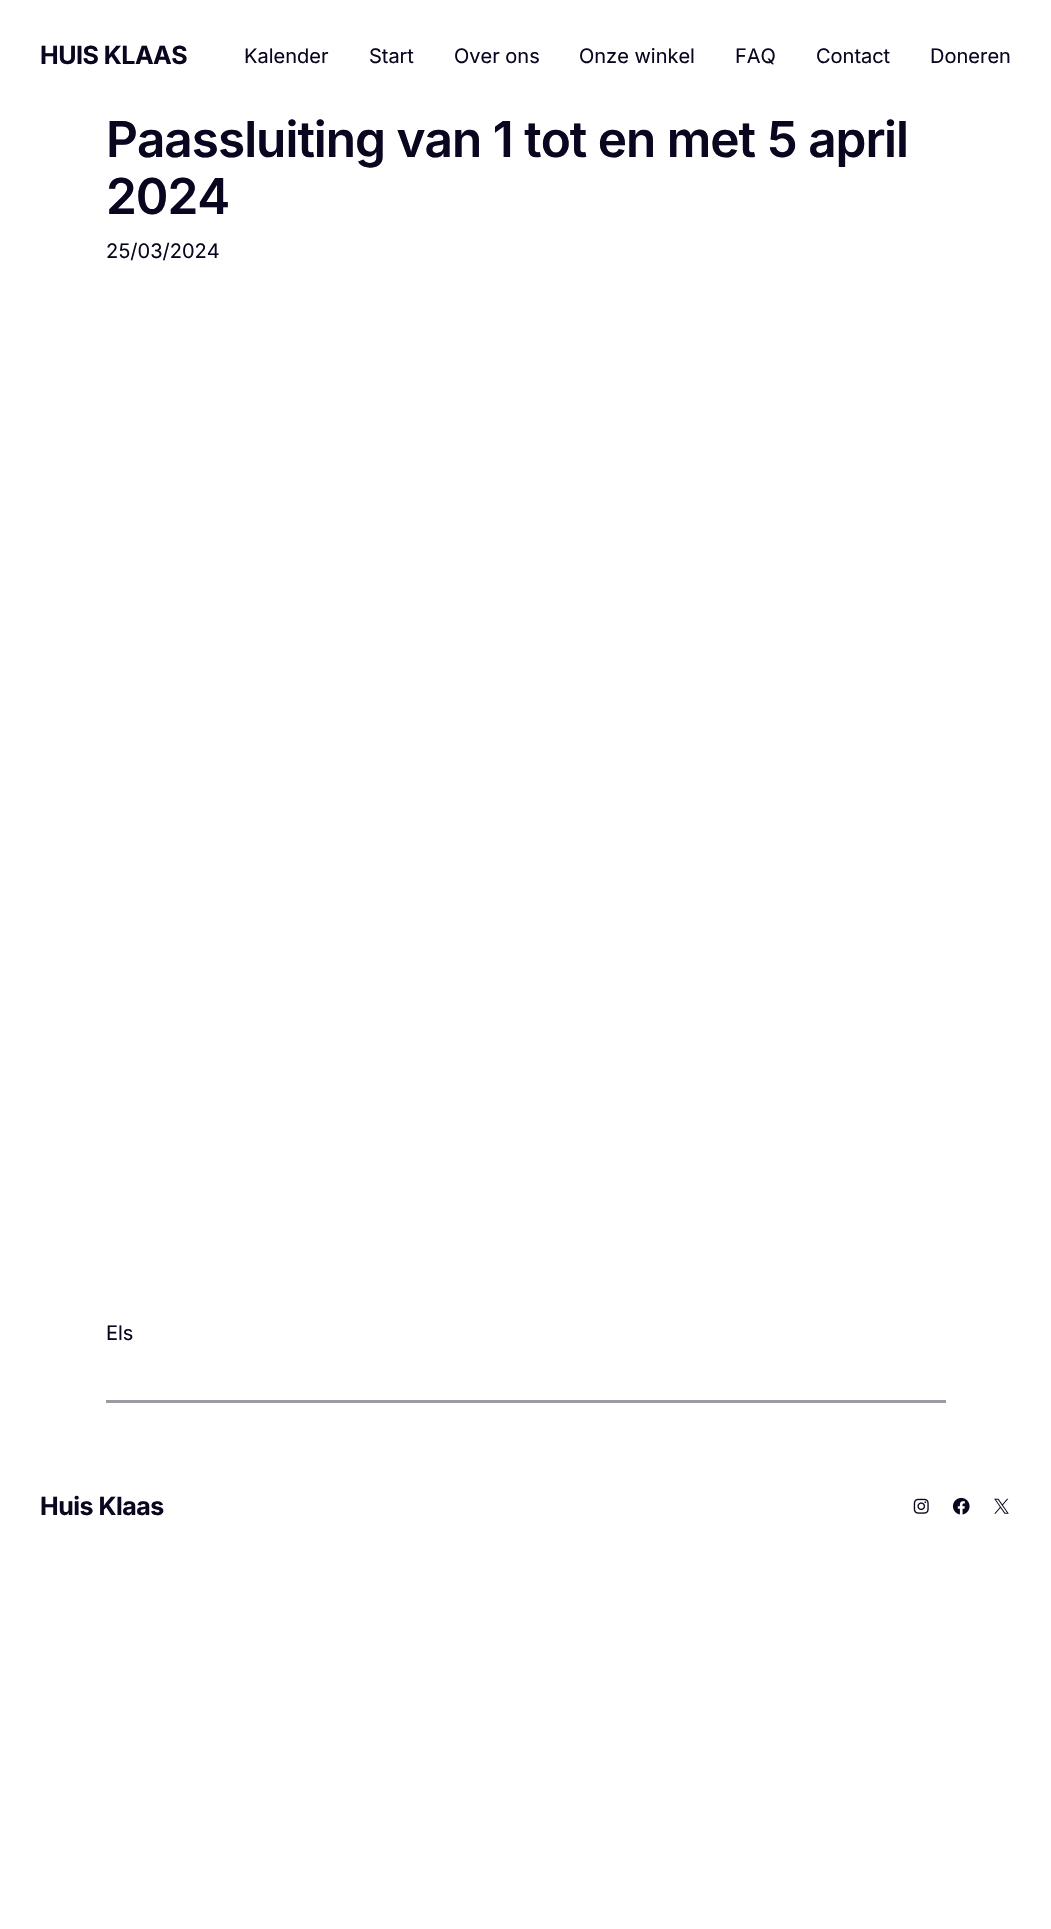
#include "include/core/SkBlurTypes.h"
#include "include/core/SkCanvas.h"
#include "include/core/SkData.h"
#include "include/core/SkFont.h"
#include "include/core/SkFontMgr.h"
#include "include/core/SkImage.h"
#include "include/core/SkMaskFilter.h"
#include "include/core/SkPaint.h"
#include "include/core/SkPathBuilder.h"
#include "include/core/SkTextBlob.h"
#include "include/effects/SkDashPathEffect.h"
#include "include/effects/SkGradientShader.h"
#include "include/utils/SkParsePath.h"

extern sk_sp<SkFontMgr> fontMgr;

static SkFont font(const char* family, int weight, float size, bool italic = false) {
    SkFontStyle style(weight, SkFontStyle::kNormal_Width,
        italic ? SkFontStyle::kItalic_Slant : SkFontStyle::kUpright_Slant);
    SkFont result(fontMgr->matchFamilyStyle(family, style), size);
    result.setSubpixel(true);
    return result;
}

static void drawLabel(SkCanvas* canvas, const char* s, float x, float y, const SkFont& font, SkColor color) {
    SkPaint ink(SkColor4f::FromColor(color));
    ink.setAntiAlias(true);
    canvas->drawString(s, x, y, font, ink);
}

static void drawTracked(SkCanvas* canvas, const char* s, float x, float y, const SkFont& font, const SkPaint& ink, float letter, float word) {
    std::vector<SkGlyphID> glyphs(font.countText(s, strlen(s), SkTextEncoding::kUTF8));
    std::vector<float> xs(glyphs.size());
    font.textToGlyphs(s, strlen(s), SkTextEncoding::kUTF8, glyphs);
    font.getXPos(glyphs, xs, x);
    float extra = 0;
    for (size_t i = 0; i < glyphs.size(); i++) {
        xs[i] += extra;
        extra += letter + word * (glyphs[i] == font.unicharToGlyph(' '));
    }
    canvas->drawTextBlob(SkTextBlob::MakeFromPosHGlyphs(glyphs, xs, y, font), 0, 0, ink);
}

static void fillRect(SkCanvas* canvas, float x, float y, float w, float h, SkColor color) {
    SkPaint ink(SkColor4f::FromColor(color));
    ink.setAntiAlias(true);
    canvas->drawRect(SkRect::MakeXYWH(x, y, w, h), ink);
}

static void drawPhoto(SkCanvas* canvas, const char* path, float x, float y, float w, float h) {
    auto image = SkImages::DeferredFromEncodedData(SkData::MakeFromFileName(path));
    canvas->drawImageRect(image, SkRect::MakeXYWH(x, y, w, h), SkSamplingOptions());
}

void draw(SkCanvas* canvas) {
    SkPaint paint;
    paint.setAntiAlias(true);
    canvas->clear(0xFFFFFFFF);
    SkFont font1 = font("Inter", 700, 25);
    paint.setColor(0xFF0B0620);
    drawTracked(canvas, "HUIS KLAAS", 40, 64, font1, paint, -0.5f, 0);
    SkFont font2 = font("Inter", 400, 20);
    drawLabel(canvas, "Kalender", 244, 63, font2, 0xFF0B0620);
    drawLabel(canvas, "Start", 369, 63, font2, 0xFF0B0620);
    drawLabel(canvas, "Over ons", 454, 63, font2, 0xFF0B0620);
    drawLabel(canvas, "Onze winkel", 579, 63, font2, 0xFF0B0620);
    drawLabel(canvas, "FAQ", 735, 63, font2, 0xFF0B0620);
    drawLabel(canvas, "Contact", 816, 63, font2, 0xFF0B0620);
    drawLabel(canvas, "Doneren", 930, 63, font2, 0xFF0B0620);
    SkFont font3 = font("Inter", 600, 49.5f);
    drawTracked(canvas, "Paassluiting van 1 tot en met 5 april", 106, 157, font3, paint, -1, 0);
    drawTracked(canvas, "2024", 106, 214, font3, paint, -1, 0);
    drawLabel(canvas, "25/03/2024", 106, 258, font2, 0xFF0B0620);
    drawLabel(canvas, "Els", 106, 1340, font2, 0xFF0B0620);
    fillRect(canvas, 106, 1400, 840, 3, 0xFF9D9BA6);
    drawTracked(canvas, "Huis Klaas", 40, 1515, font1, paint, -0.5f, 0);
    drawPhoto(canvas, "assets/img1.png", 913, 1498, 16, 16);
    drawPhoto(canvas, "assets/img2.png", 952, 1497, 18, 18);
    drawPhoto(canvas, "assets/img3.png", 994, 1498, 15, 16);
}
